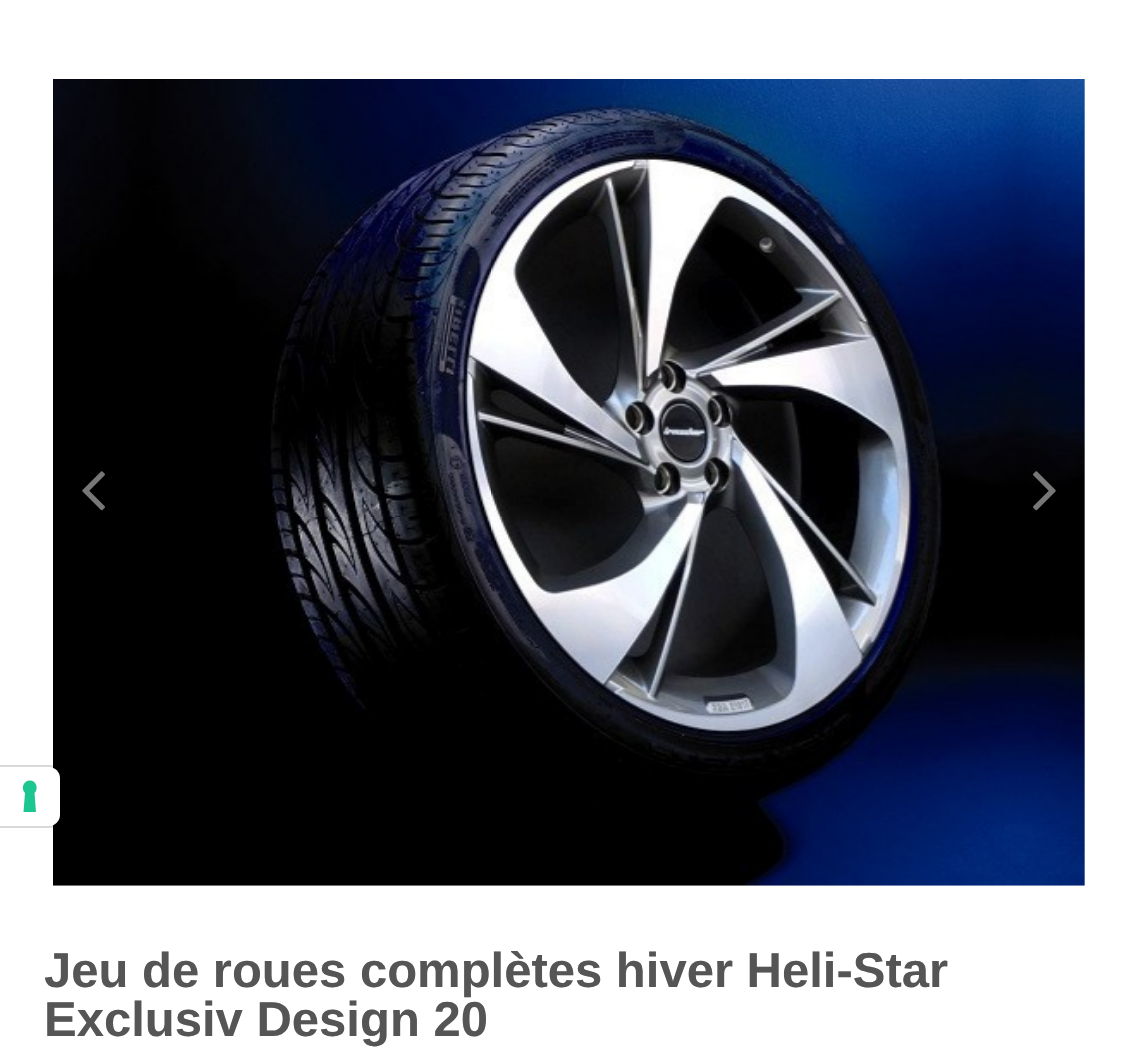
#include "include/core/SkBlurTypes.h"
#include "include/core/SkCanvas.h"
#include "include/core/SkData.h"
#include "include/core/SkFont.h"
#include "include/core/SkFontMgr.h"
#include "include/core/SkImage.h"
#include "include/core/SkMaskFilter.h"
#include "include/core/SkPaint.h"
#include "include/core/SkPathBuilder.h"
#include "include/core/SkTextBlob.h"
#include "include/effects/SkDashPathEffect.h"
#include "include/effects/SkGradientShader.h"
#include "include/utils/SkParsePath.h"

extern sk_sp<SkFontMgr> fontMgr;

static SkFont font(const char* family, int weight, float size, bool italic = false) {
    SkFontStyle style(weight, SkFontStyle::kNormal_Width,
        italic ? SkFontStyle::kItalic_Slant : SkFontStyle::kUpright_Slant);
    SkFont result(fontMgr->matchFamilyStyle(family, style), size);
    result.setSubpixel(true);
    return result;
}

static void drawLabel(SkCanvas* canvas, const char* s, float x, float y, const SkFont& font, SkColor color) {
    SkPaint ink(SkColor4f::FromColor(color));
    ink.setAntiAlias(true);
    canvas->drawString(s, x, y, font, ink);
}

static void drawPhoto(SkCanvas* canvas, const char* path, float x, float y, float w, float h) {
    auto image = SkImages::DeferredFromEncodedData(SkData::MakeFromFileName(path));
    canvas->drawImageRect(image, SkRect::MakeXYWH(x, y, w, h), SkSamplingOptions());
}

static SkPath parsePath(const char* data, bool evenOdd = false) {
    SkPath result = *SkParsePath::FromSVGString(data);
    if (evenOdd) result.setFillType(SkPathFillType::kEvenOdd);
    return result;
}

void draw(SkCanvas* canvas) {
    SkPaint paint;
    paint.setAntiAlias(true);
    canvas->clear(0xFFFFFFFF);
    drawPhoto(canvas, "assets/img1.png", 53, 79, 1032, 807);
    paint.setStroke(true);
    paint.setStrokeWidth(2);
    paint.setColor(0x26000000);
    canvas->drawPath(parsePath("M-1 766H49C55 766 60 771 60 777V816C60 822 55 827 49 827H-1Z"), paint);
    paint.setStroke(false);
    paint.setColor(0xFFFFFFFF);
    canvas->drawPath(parsePath("M0 767H49C55 767 60 772 60 778V815C60 821 55 826 49 826H0Z"), paint);
    paint.setColor(0xFF1CC691);
    canvas->drawPath(parsePath("M30 780.5C36 780.5 39 788.5 34.5 793L36 812H23.5L25 793C20.5 788.5 23.5 780.5 30 780.5Z", true), paint);
    drawPhoto(canvas, "assets/img2.png", 82, 471, 23, 40);
    drawPhoto(canvas, "assets/img3.png", 1033, 471, 23, 40);
    SkFont font1 = font("Liberation Sans", 700, 49);
    drawLabel(canvas, "Jeu de roues complètes hiver Heli-Star", 44, 987, font1, 0xFF555555);
    drawLabel(canvas, "Exclusiv Design 20", 44, 1036, font1, 0xFF555555);
}
